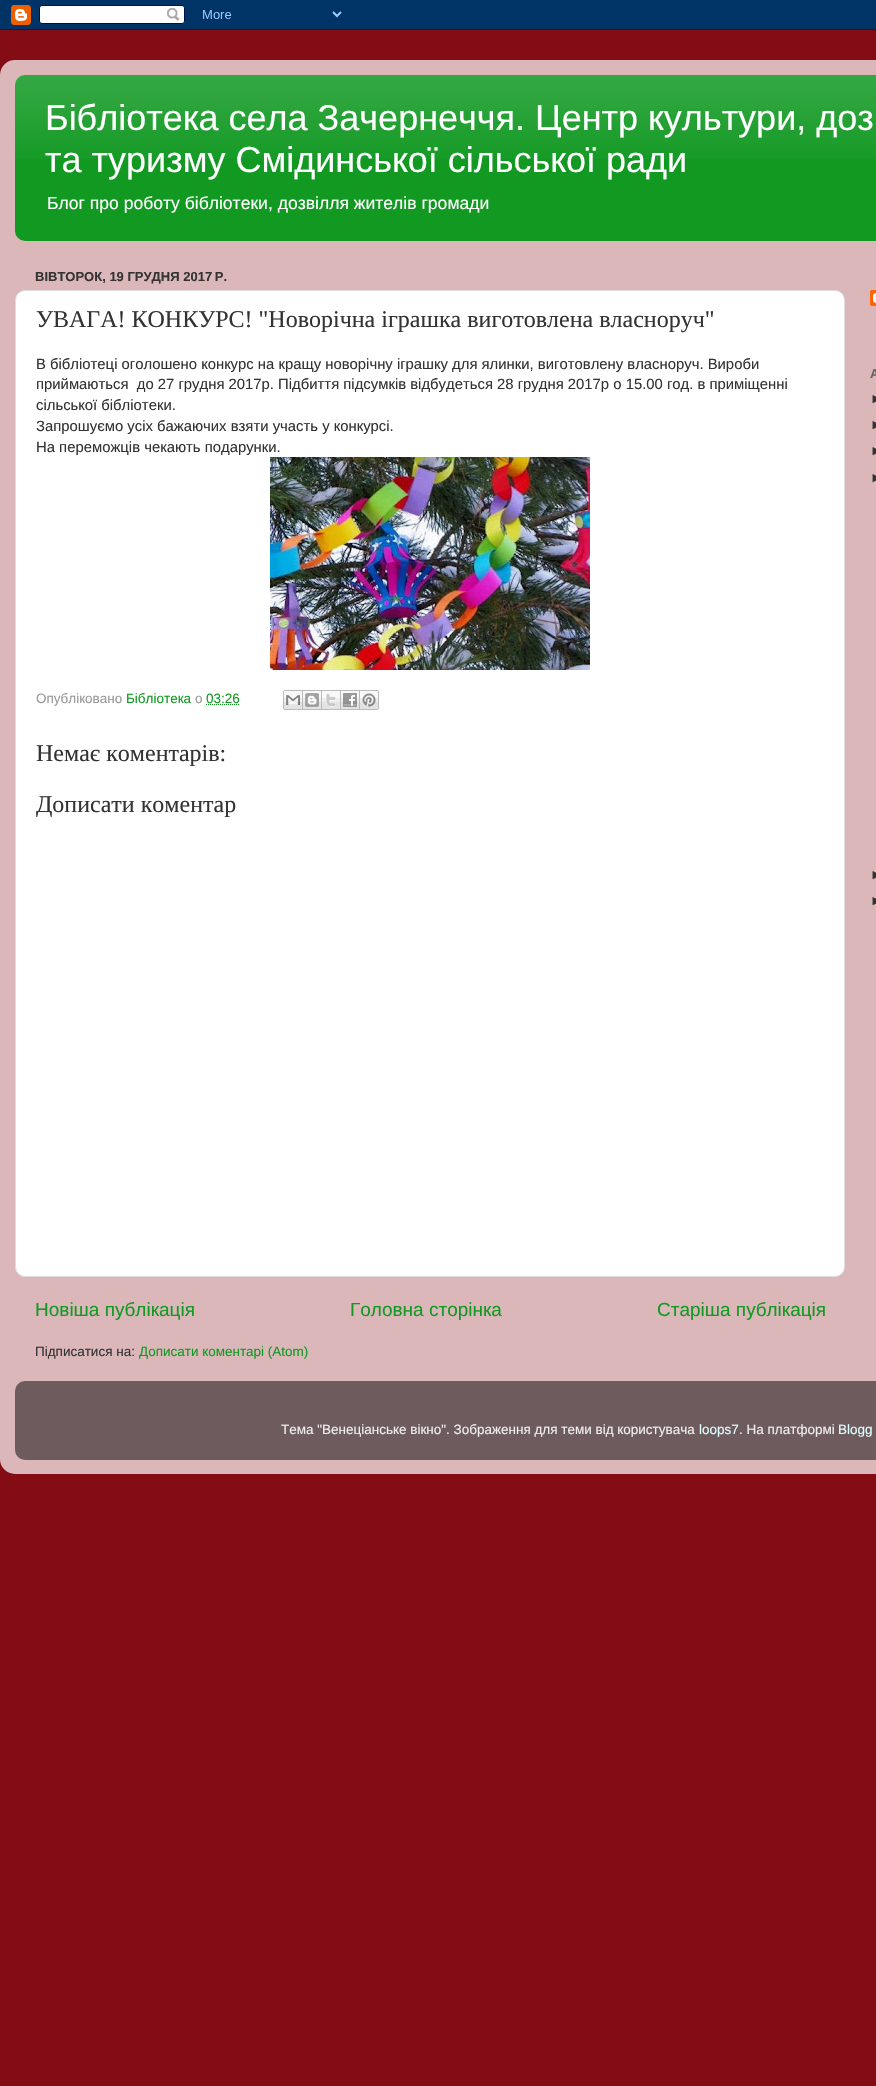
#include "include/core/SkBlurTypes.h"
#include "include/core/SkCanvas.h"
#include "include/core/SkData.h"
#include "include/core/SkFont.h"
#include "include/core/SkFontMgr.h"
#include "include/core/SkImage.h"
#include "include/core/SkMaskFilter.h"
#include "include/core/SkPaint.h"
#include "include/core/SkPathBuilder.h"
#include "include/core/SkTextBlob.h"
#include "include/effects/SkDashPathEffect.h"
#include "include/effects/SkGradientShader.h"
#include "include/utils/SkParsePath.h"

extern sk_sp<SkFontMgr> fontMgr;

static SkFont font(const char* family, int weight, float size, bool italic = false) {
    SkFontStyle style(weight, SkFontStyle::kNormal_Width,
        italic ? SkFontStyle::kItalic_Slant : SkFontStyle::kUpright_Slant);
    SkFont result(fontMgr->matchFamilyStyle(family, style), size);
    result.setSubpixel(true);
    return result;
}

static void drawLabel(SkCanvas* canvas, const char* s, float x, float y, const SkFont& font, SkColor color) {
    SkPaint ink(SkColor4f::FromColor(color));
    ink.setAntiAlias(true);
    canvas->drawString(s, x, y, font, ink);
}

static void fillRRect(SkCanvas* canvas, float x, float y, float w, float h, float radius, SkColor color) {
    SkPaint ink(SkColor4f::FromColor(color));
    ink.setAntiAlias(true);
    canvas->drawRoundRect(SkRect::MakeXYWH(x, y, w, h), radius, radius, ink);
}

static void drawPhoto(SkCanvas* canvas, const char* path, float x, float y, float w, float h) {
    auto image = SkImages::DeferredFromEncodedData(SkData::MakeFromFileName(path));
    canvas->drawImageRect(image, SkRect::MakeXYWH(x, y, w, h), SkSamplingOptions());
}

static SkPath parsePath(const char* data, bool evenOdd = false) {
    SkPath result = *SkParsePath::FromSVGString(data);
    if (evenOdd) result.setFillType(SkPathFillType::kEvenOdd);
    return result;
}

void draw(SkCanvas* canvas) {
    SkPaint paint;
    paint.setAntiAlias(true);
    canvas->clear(0xFF840C15);
    drawPhoto(canvas, "assets/img1.png", 0, 0, 876, 30);
    drawPhoto(canvas, "assets/img2.png", 0, 60, 876, 1414);
    fillRRect(canvas, 15, 75, 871, 166, 10, 0xFF119922);
    drawPhoto(canvas, "assets/img3.png", 15, 75, 861, 84);
    SkFont font1 = font("Liberation Sans", 400, 36);
    drawLabel(canvas, "Бібліотека села Зачернеччя. Центр культури, доз", 45, 130, font1, 0xFFFFFFFF);
    drawLabel(canvas, "та туризму Смідинської сільської ради", 45, 172, font1, 0xFFFFFFFF);
    SkFont font2 = font("Liberation Sans", 400, 17.55f);
    drawLabel(canvas, "Блог про роботу бібліотеки, дозвілля жителів громади", 47, 209, font2, 0xFFFFFFFF);
    SkFont font3 = font("Liberation Sans", 700, 13);
    drawLabel(canvas, "ВІВТОРОК, 19 ГРУДНЯ 2017 Р.", 35, 281, font3, 0xFF333333);
    paint.setColor(0xFFFFFFFF);
    canvas->drawRoundRect(SkRect::MakeXYWH(15.5f, 290.5f, 829, 986), 9.5f, 9.5f, paint);
    paint.setStroke(true);
    paint.setStrokeWidth(1);
    paint.setColor(0xFFDDDDDD);
    canvas->drawRoundRect(SkRect::MakeXYWH(15.5f, 290.5f, 829, 986), 9.5f, 9.5f, paint);
    SkFont font4 = font("Liberation Serif", 400, 24);
    drawLabel(canvas, "УВАГА! КОНКУРС! \"Новорічна іграшка виготовлена власноруч\"", 36, 327, font4, 0xFF333333);
    SkFont font5 = font("Liberation Sans", 400, 14.85f);
    drawLabel(canvas, "В бібліотеці оголошено конкурс на кращу новорічну іграшку для ялинки, виготовлену власноруч. Вироби", 36, 369, font5, 0xFF333333);
    drawLabel(canvas, "приймаються  до 27 грудня 2017р. Підбиття підсумків відбудеться 28 грудня 2017р о 15.00 год. в приміщенні", 36, 389, font5, 0xFF333333);
    drawLabel(canvas, "сільської бібліотеки.", 36, 410, font5, 0xFF333333);
    drawLabel(canvas, "Запрошуємо усіх бажаючих взяти участь у конкурсі.", 36, 431, font5, 0xFF333333);
    drawLabel(canvas, "На переможців чекають подарунки.", 36, 452, font5, 0xFF333333);
    drawPhoto(canvas, "assets/img4.png", 270, 457, 320, 213);
    SkFont font6 = font("Liberation Sans", 400, 13.5f);
    drawLabel(canvas, "Опубліковано", 36, 703, font6, 0xFF999999);
    drawLabel(canvas, "Бібліотека", 126, 703, font6, 0xFF119922);
    drawLabel(canvas, "о", 195, 703, font6, 0xFF999999);
    drawLabel(canvas, "03:26", 206, 703, font6, 0xFF119922);
    paint.setColor(0xFF119922);
    paint.setPathEffect(SkDashPathEffect::Make({{1, 1}}, 0));
    canvas->drawPath(parsePath("M206 704.5H240"), paint);
    paint.setPathEffect(nullptr);
    drawPhoto(canvas, "assets/img5.png", 283, 690, 20, 20);
    drawPhoto(canvas, "assets/img6.png", 303, 690, 19, 20);
    drawPhoto(canvas, "assets/img7.png", 322, 690, 19, 20);
    drawPhoto(canvas, "assets/img8.png", 341, 690, 19, 20);
    drawPhoto(canvas, "assets/img9.png", 360, 690, 19, 20);
    drawLabel(canvas, "Немає коментарів:", 36, 761, font4, 0xFF333333);
    drawLabel(canvas, "Дописати коментар", 36, 812, font4, 0xFF333333);
    SkFont font7 = font("Liberation Sans", 400, 19);
    drawLabel(canvas, "Новіша публікація", 35, 1316, font7, 0xFF119922);
    drawLabel(canvas, "Головна сторінка", 350, 1316, font7, 0xFF119922);
    drawLabel(canvas, "Старіша публікація", 657, 1316, font7, 0xFF119922);
    drawLabel(canvas, "Підписатися на:", 35, 1356, font6, 0xFF333333);
    drawLabel(canvas, "Дописати коментарі (Atom)", 139, 1356, font6, 0xFF119922);
    drawPhoto(canvas, "assets/img10.png", 870, 290, 6, 16);
    drawLabel(canvas, "А", 870, 378, font3, 0xFF666666);
    drawLabel(canvas, "►", 870, 403, font6, 0xFF333333);
    drawLabel(canvas, "►", 870, 429, font6, 0xFF333333);
    drawLabel(canvas, "►", 870, 455, font6, 0xFF333333);
    drawLabel(canvas, "►", 870, 482, font6, 0xFF333333);
    drawLabel(canvas, "►", 870, 879, font6, 0xFF333333);
    drawLabel(canvas, "►", 870, 905, font6, 0xFF333333);
    drawPhoto(canvas, "assets/img11.png", 15, 1381, 861, 79);
    drawLabel(canvas, "Тема \"Венеціанське вікно\". Зображення для теми від користувача", 281, 1434, font6, 0xFFEEEEEE);
    drawLabel(canvas, "loops7", 699, 1434, font6, 0xFFDDFFFF);
    drawLabel(canvas, ". На платформі", 739, 1434, font6, 0xFFEEEEEE);
    drawLabel(canvas, "Blogg", 838, 1434, font6, 0xFFDDFFFF);
}
